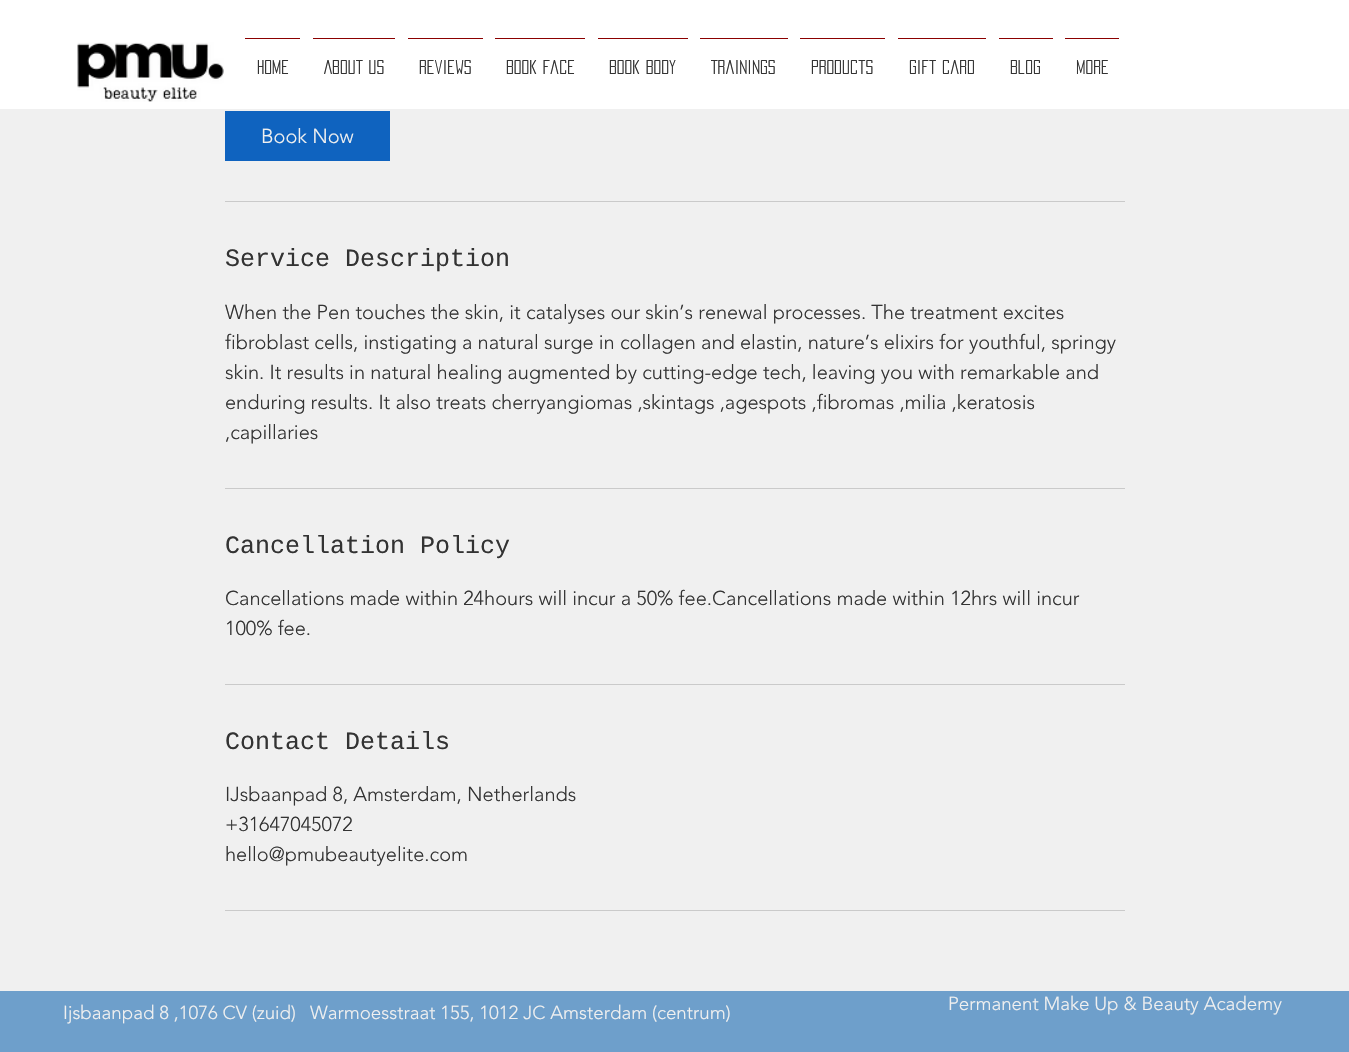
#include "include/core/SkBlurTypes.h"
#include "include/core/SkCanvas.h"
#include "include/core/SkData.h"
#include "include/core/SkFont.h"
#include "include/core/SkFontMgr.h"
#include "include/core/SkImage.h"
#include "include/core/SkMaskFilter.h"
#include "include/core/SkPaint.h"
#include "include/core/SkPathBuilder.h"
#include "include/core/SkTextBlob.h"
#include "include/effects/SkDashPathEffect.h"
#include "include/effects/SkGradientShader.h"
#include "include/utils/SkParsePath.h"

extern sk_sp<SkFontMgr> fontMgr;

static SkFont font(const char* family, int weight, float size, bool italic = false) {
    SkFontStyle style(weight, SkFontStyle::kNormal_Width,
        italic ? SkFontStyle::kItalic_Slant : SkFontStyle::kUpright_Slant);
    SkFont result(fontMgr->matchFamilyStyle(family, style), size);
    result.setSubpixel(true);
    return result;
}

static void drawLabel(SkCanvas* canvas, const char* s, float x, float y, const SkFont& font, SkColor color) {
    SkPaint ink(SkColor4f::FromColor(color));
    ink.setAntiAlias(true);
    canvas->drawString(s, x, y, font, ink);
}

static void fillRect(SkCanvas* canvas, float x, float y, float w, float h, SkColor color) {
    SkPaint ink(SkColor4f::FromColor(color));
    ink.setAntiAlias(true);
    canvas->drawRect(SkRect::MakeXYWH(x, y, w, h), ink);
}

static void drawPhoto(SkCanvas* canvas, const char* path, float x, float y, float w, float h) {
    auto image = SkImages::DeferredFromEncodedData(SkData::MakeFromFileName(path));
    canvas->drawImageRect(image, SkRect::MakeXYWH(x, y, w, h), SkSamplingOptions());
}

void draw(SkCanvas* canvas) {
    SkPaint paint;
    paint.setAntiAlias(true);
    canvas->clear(0xFFF0F0F0);
    fillRect(canvas, 0, 0, 1349, 109, 0xFFFFFFFF);
    drawPhoto(canvas, "assets/img1.png", 77, 42, 147, 60);
    fillRect(canvas, 245, 38, 55, 1, 0xFF8B0000);
    SkFont font1 = font("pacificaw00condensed", 400, 17.5f);
    drawLabel(canvas, "Home", 257, 74, font1, 0xFF333333);
    fillRect(canvas, 313, 38, 82, 1, 0xFF8B0000);
    drawLabel(canvas, "About us", 324, 74, font1, 0xFF333333);
    fillRect(canvas, 408, 38, 75, 1, 0xFF8B0000);
    drawLabel(canvas, "Reviews", 419, 74, font1, 0xFF333333);
    fillRect(canvas, 495, 38, 90, 1, 0xFF8B0000);
    drawLabel(canvas, "Book Face", 506, 74, font1, 0xFF333333);
    fillRect(canvas, 598, 38, 90, 1, 0xFF8B0000);
    drawLabel(canvas, "Book Body", 609, 74, font1, 0xFF333333);
    fillRect(canvas, 700, 38, 88, 1, 0xFF8B0000);
    drawLabel(canvas, "Trainings", 711, 74, font1, 0xFF333333);
    fillRect(canvas, 800, 38, 85, 1, 0xFF8B0000);
    drawLabel(canvas, "Products", 811, 74, font1, 0xFF333333);
    fillRect(canvas, 898, 38, 88, 1, 0xFF8B0000);
    drawLabel(canvas, "Gift card", 909, 74, font1, 0xFF333333);
    fillRect(canvas, 999, 38, 54, 1, 0xFF8B0000);
    drawLabel(canvas, "Blog", 1010, 74, font1, 0xFF333333);
    fillRect(canvas, 1065, 38, 54, 1, 0xFF8B0000);
    drawLabel(canvas, "More", 1076, 74, font1, 0xFF333333);
    fillRect(canvas, 225, 111, 165, 50, 0xFF0F63BF);
    SkFont font2 = font("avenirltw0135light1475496", 300, 20);
    drawLabel(canvas, "Book Now", 261, 143, font2, 0xFFF0F0F0);
    fillRect(canvas, 225, 201, 900, 1, 0xFFCACACA);
    SkFont font3 = font("Liberation Mono", 400, 25);
    drawLabel(canvas, "Service Description", 225, 266, font3, 0xFF333333);
    drawLabel(canvas, "When the Pen touches the skin, it catalyses our skin’s renewal processes. The treatment excites", 225, 319, font2, 0xFF333333);
    drawLabel(canvas, "fibroblast cells, instigating a natural surge in collagen and elastin, nature’s elixirs for youthful, springy", 225, 349, font2, 0xFF333333);
    drawLabel(canvas, "skin. It results in natural healing augmented by cutting-edge tech, leaving you with remarkable and", 225, 379, font2, 0xFF333333);
    drawLabel(canvas, "enduring results. It also treats cherryangiomas ,skintags ,agespots ,fibromas ,milia ,keratosis", 225, 409, font2, 0xFF333333);
    drawLabel(canvas, ",capillaries", 225, 439, font2, 0xFF333333);
    fillRect(canvas, 225, 488, 900, 1, 0xFFCACACA);
    drawLabel(canvas, "Cancellation Policy", 225, 553, font3, 0xFF333333);
    drawLabel(canvas, "Cancellations made within 24hours will incur a 50% fee.Cancellations made within 12hrs will incur", 225, 605, font2, 0xFF333333);
    drawLabel(canvas, "100% fee.", 225, 635, font2, 0xFF333333);
    fillRect(canvas, 225, 684, 900, 1, 0xFFCACACA);
    drawLabel(canvas, "Contact Details", 225, 749, font3, 0xFF333333);
    drawLabel(canvas, "IJsbaanpad 8, Amsterdam, Netherlands", 225, 801, font2, 0xFF333333);
    drawLabel(canvas, "+31647045072", 225, 831, font2, 0xFF333333);
    drawLabel(canvas, "hello@pmubeautyelite.com", 225, 861, font2, 0xFF333333);
    fillRect(canvas, 225, 910, 900, 1, 0xFFCACACA);
    fillRect(canvas, 0, 991, 1349, 61, 0xFF6E9FCB);
    SkFont font4 = font("avenirltw0135light1475496", 300, 18.75f);
    drawLabel(canvas, "Ijsbaanpad 8 ,1076 CV (zuid)", 63, 1019, font4, 0xFFF0F0F0);
    drawLabel(canvas, "Warmoesstraat 155, 1012 JC Amsterdam (centrum)", 310, 1019, font4, 0xFFF0F0F0);
    drawLabel(canvas, "Permanent Make Up & Beauty Academy", 948, 1010, font4, 0xFFF0F0F0);
}
